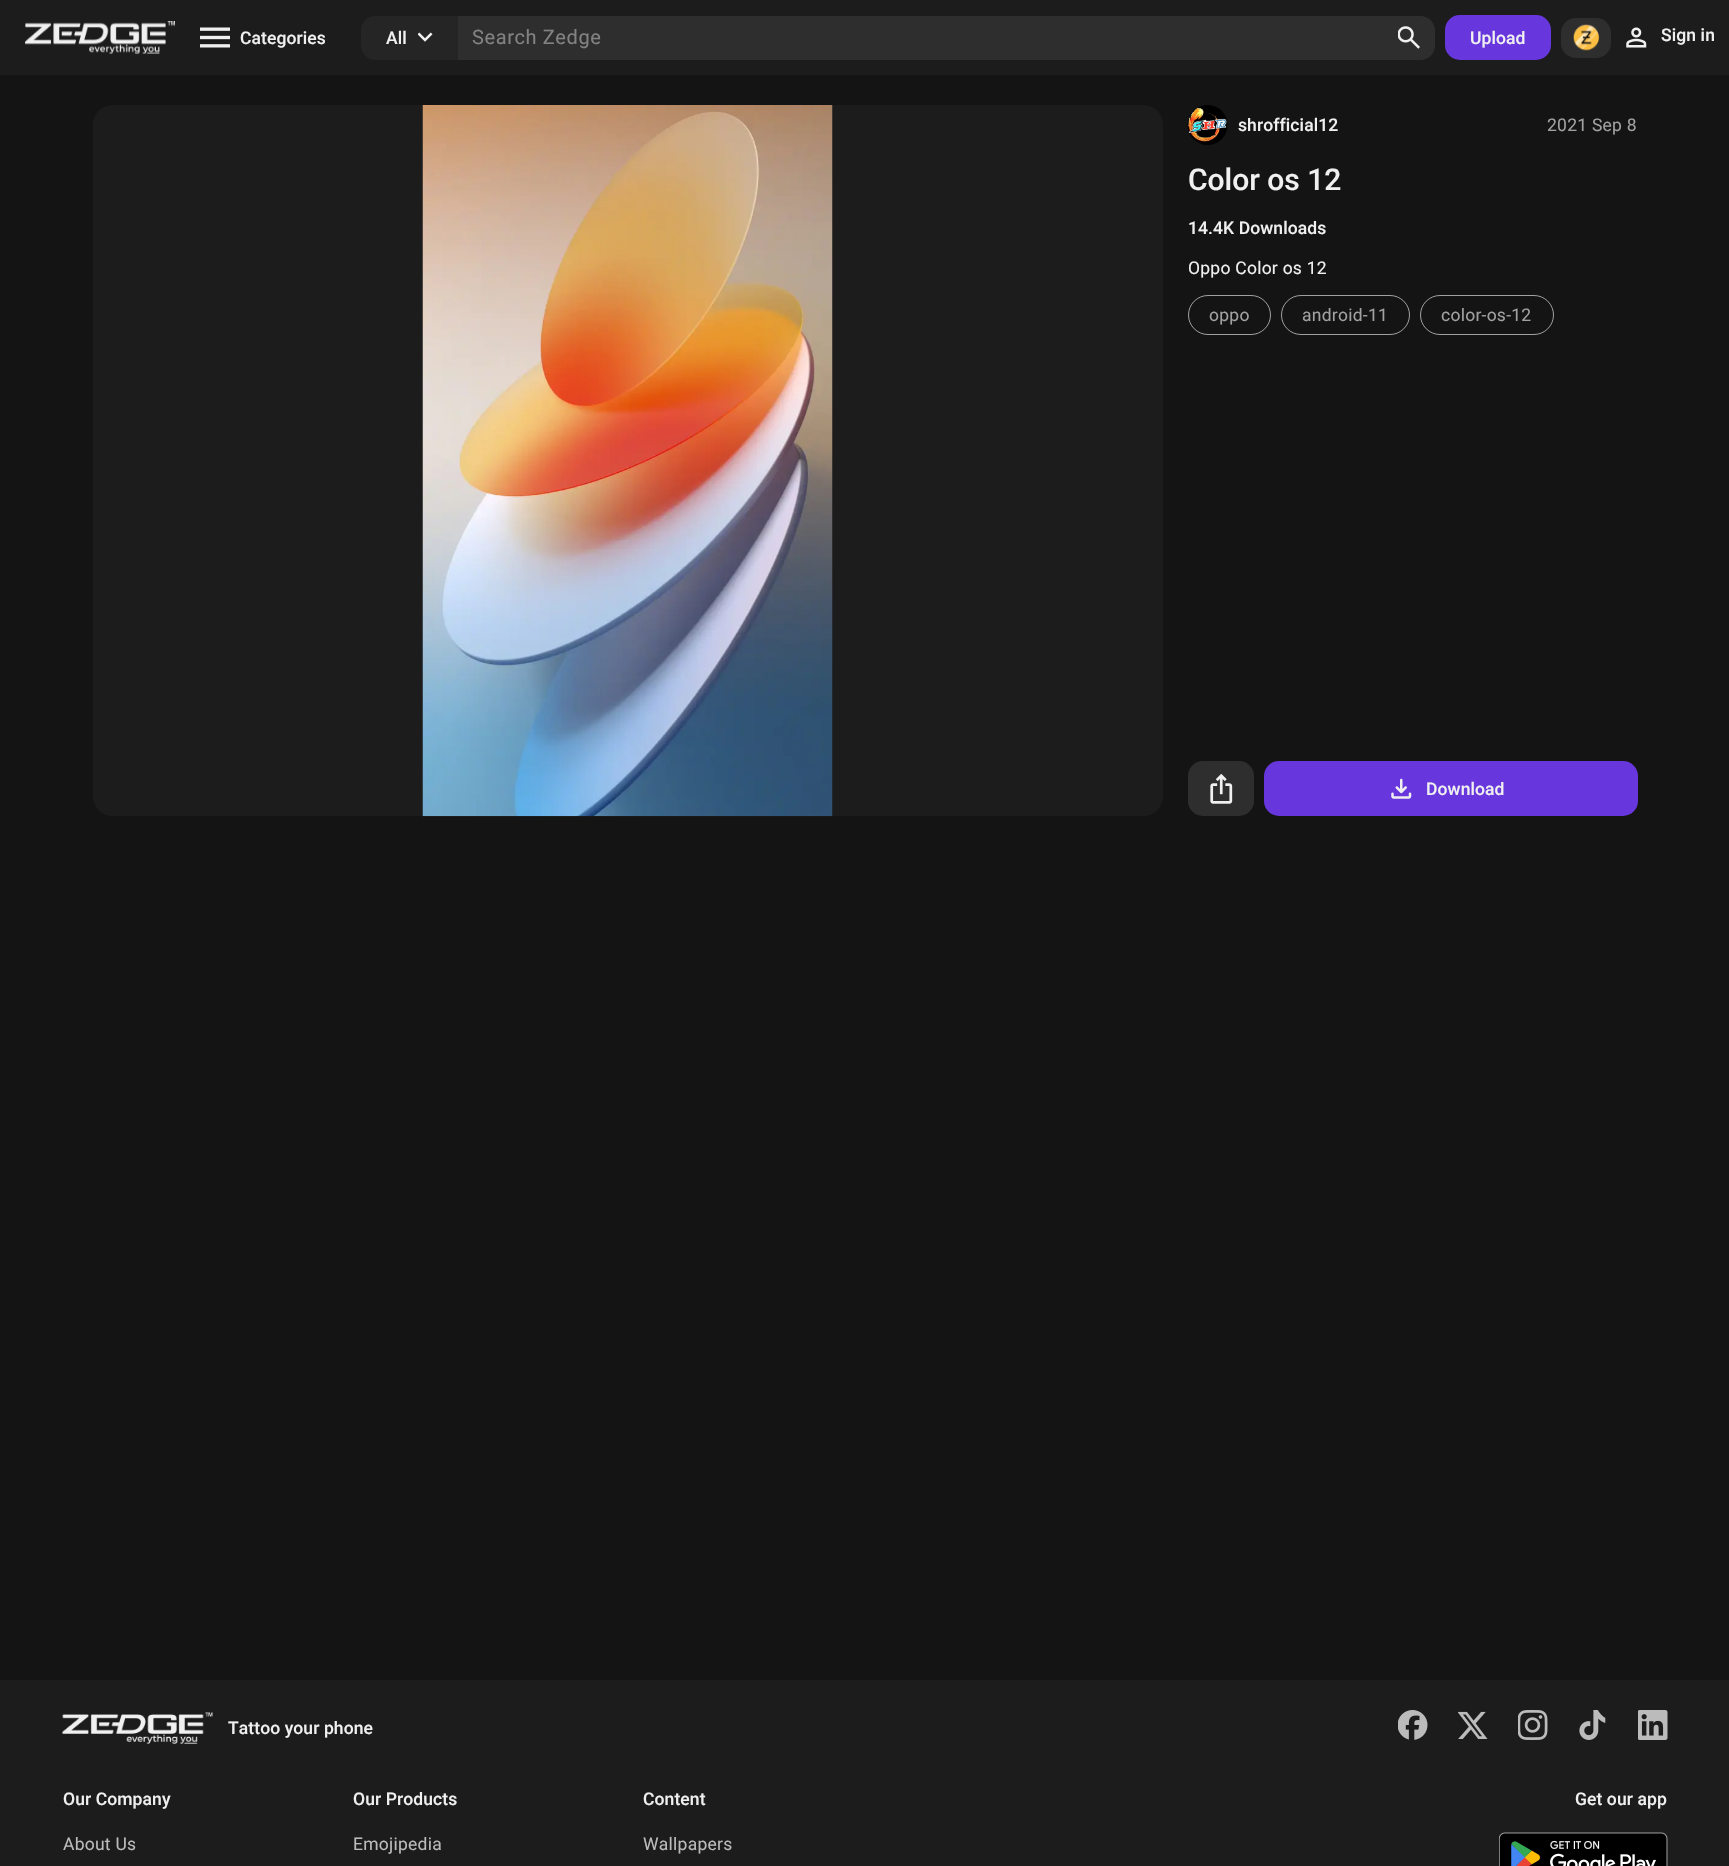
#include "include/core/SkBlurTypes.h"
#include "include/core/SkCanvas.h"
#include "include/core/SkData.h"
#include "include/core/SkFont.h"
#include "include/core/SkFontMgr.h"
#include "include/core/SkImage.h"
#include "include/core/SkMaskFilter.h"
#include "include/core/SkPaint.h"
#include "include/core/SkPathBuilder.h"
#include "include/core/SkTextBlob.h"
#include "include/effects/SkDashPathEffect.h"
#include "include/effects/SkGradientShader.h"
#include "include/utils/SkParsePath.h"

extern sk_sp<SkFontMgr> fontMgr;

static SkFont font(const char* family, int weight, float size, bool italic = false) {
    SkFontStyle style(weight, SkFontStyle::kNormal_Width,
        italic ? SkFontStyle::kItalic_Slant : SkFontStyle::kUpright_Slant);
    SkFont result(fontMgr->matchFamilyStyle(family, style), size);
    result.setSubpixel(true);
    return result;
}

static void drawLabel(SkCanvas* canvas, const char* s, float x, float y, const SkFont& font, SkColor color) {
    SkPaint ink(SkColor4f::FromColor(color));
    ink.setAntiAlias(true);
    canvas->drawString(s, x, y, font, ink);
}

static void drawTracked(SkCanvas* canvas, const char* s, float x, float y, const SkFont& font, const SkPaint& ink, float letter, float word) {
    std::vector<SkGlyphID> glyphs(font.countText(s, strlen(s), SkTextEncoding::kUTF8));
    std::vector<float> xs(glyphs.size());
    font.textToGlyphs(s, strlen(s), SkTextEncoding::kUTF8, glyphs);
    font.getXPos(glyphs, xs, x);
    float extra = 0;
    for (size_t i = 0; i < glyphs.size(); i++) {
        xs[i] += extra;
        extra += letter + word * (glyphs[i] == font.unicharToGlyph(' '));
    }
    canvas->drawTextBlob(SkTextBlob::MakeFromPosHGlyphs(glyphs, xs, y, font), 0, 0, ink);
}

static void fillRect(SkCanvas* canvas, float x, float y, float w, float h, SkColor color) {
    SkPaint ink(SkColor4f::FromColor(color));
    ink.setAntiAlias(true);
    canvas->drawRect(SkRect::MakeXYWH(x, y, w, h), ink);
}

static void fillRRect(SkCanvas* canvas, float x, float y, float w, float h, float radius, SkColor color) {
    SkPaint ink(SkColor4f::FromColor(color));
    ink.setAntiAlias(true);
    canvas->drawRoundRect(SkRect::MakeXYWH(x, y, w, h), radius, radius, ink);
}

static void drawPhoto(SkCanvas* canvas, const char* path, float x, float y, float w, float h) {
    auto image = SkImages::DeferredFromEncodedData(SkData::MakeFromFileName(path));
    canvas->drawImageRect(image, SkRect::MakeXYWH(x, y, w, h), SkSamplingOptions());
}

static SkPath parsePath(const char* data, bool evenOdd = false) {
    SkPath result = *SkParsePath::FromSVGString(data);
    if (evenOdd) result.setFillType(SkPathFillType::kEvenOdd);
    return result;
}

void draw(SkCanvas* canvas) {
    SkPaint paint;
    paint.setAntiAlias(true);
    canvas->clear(0xFF141414);
    fillRect(canvas, 0, 0, 1729, 75, 0xFF1C1C1C);
    drawPhoto(canvas, "assets/img1.png", 25, 21, 150, 24);
    drawPhoto(canvas, "assets/img2.png", 89, 44, 71, 10);
    drawPhoto(canvas, "assets/img3.png", 200, 27, 30, 21);
    SkFont font1 = font("Roboto", 500, 17.5f);
    paint.setColor(0xFFF0F0F0);
    drawTracked(canvas, "Categories", 240, 44, font1, paint, 0.1f, 0);
    paint.setColor(0xFF252525);
    canvas->drawPath(parsePath("M376 16H458V60H376C367.5 60 361 53.5 361 45V31C361 22.5 367.5 16 376 16Z"), paint);
    paint.setColor(0xFFF0F0F0);
    drawTracked(canvas, "All", 386, 44, font1, paint, 0.1f, 0);
    drawPhoto(canvas, "assets/img4.png", 418, 32, 15, 10);
    paint.setColor(0xFF2E2E2E);
    canvas->drawPath(parsePath("M458 16H1420C1428.5 16 1435 22.5 1435 31V45C1435 53.5 1428.5 60 1420 60H458Z"), paint);
    SkFont font2 = font("Roboto", 400, 20);
    paint.setColor(0xFF828282);
    drawTracked(canvas, "Search Zedge", 472, 44, font2, paint, 0.6f, 0);
    drawPhoto(canvas, "assets/img5.png", 1398, 26, 22, 23);
    fillRRect(canvas, 1445, 15, 106, 45, 15, 0xFF6836DD);
    paint.setColor(0xFFF0F0F0);
    drawTracked(canvas, "Upload", 1470, 44, font1, paint, 0.1f, 0);
    fillRRect(canvas, 1561, 18, 50, 40, 15, 0xFF2E2E2E);
    drawPhoto(canvas, "assets/img6.png", 1573, 24, 27, 27);
    drawPhoto(canvas, "assets/img7.png", 1626, 27, 21, 21);
    drawTracked(canvas, "Sign in", 1661, 41, font1, paint, 0.1f, 0);
    fillRRect(canvas, 93, 105, 1070, 711, 20, 0xFF1C1C1C);
    drawPhoto(canvas, "assets/img8.png", 422, 105, 411, 712);
    drawPhoto(canvas, "assets/img9.png", 1187, 105, 41, 40);
    drawTracked(canvas, "shrofficial12", 1238, 131, font1, paint, 0.1f, 0);
    SkFont font3 = font("Roboto", 400, 17.5f);
    paint.setColor(0xFFA1A1A1);
    drawTracked(canvas, "2021 Sep 8", 1547, 131, font3, paint, 0.25f, 0);
    SkFont font4 = font("Roboto", 500, 30);
    drawLabel(canvas, "Color os 12", 1188, 190, font4, 0xFFF0F0F0);
    paint.setColor(0xFFF0F0F0);
    drawTracked(canvas, "14.4K Downloads", 1188, 234, font1, paint, 0.1f, 0);
    drawTracked(canvas, "Oppo Color os 12", 1188, 274, font3, paint, 0.25f, 0);
    paint.setStroke(true);
    paint.setStrokeWidth(1);
    paint.setColor(0xFFA1A1A1);
    canvas->drawRoundRect(SkRect::MakeXYWH(1188.5f, 295.5f, 82, 39), 19.5f, 19.5f, paint);
    paint.setStroke(false);
    drawTracked(canvas, "oppo", 1209, 321, font3, paint, 0.25f, 0);
    paint.setStroke(true);
    canvas->drawRoundRect(SkRect::MakeXYWH(1281.5f, 295.5f, 128, 39), 19.5f, 19.5f, paint);
    paint.setStroke(false);
    drawTracked(canvas, "android-11", 1302, 321, font3, paint, 0.25f, 0);
    paint.setStroke(true);
    canvas->drawRoundRect(SkRect::MakeXYWH(1420.5f, 295.5f, 133, 39), 19.5f, 19.5f, paint);
    paint.setStroke(false);
    drawTracked(canvas, "color-os-12", 1441, 321, font3, paint, 0.25f, 0);
    fillRRect(canvas, 1188, 761, 66, 55, 15, 0xFF2E2E2E);
    drawPhoto(canvas, "assets/img10.png", 1210, 774, 23, 30);
    fillRRect(canvas, 1264, 761, 374, 55, 15, 0xFF6836DD);
    drawPhoto(canvas, "assets/img11.png", 1391, 778, 21, 21);
    paint.setColor(0xFFF0F0F0);
    drawTracked(canvas, "Download", 1426, 795, font1, paint, 0.1f, 0);
    fillRect(canvas, 0, 1680, 1729, 186, 0xFF1C1C1C);
    drawPhoto(canvas, "assets/img12.png", 62, 1712, 151, 22);
    drawPhoto(canvas, "assets/img13.png", 126, 1734, 72, 10);
    drawTracked(canvas, "Tattoo your phone", 228, 1734, font1, paint, 0.1f, 0);
    drawPhoto(canvas, "assets/img14.png", 1398, 1710, 30, 30);
    drawPhoto(canvas, "assets/img15.png", 1458, 1711, 30, 28);
    drawPhoto(canvas, "assets/img16.png", 1518, 1710, 30, 30);
    drawPhoto(canvas, "assets/img17.png", 1579, 1710, 27, 30);
    drawPhoto(canvas, "assets/img18.png", 1638, 1710, 30, 30);
    drawTracked(canvas, "Our Company", 63, 1805, font1, paint, 0.1f, 0);
    paint.setColor(0xFFBBBBBB);
    drawTracked(canvas, "About Us", 63, 1850, font3, paint, 0.25f, 0);
    paint.setColor(0xFFF0F0F0);
    drawTracked(canvas, "Our Products", 353, 1805, font1, paint, 0.1f, 0);
    paint.setColor(0xFFBBBBBB);
    drawTracked(canvas, "Emojipedia", 353, 1850, font3, paint, 0.25f, 0);
    paint.setColor(0xFFF0F0F0);
    drawTracked(canvas, "Content", 643, 1805, font1, paint, 0.1f, 0);
    paint.setColor(0xFFBBBBBB);
    drawTracked(canvas, "Wallpapers", 643, 1850, font3, paint, 0.25f, 0);
    paint.setColor(0xFFF0F0F0);
    drawTracked(canvas, "Get our app", 1575, 1805, font1, paint, 0.1f, 0);
    drawPhoto(canvas, "assets/img19.png", 1499, 1832, 169, 34);
}
